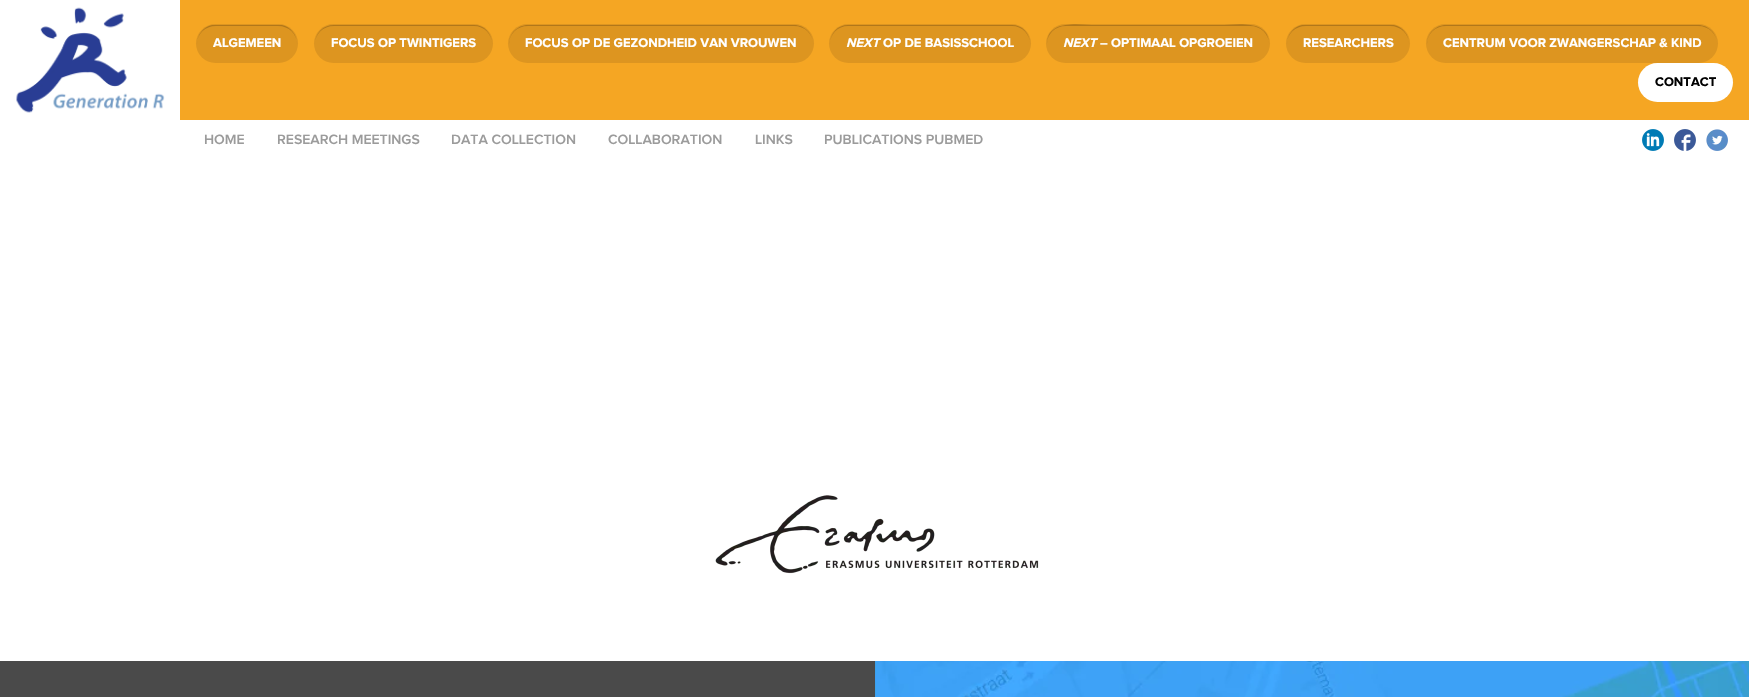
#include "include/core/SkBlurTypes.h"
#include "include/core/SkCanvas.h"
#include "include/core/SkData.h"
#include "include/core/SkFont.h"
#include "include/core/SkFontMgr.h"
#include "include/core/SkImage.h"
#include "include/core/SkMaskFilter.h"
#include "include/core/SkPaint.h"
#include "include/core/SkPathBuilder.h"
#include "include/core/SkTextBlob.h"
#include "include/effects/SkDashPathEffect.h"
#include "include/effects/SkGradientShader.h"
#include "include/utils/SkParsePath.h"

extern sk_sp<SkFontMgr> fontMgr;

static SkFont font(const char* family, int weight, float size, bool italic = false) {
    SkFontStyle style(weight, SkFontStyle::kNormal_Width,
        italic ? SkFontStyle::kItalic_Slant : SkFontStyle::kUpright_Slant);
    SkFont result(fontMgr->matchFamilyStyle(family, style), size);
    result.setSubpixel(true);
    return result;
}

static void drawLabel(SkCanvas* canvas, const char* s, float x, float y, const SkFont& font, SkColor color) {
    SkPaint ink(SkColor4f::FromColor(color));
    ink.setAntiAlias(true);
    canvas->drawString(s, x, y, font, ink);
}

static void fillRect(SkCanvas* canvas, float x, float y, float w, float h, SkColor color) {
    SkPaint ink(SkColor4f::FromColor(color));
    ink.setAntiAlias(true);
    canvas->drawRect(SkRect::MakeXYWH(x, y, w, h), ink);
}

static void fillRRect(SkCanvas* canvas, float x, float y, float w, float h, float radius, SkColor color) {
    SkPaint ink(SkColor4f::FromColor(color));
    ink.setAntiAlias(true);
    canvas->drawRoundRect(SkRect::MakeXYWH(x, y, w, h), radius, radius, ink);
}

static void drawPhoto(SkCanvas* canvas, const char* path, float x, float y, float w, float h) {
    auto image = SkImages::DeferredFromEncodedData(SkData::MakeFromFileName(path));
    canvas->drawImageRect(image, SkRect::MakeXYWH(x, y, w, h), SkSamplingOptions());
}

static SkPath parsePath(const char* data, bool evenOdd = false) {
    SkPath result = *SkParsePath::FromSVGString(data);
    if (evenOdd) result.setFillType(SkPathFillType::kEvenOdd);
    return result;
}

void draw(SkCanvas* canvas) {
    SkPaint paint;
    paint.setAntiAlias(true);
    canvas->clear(0xFFFFFFFF);
    drawPhoto(canvas, "assets/img1.png", 16, 7, 149, 106);
    fillRect(canvas, 180, 0, 1569, 120, 0xFFF5A623);
    fillRRect(canvas, 196, 24, 102, 39, 19.5f, 0xFFDD9520);
    paint.setColor(0xFFB1771A);
    canvas->drawPath(parsePath("M216 26H278C289 26 297 34 297 44C297 35 291 27 282 25H268H212C203 27 197 35 197 44C197 34 205 26 216 26Z"), paint);
    SkFont font1 = font("Proxima Nova", 700, 13);
    drawLabel(canvas, "ALGEMEEN", 213, 47, font1, 0xFFFFFFFF);
    fillRRect(canvas, 314, 24, 179, 39, 19.5f, 0xFFDD9520);
    canvas->drawPath(parsePath("M334 26H474C484 26 492 34 492 44C492 33 484 25 474 25H334C323 25 315 33 315 44C315 34 323 26 334 26Z"), paint);
    drawLabel(canvas, "FOCUS OP TWINTIGERS", 331, 47, font1, 0xFFFFFFFF);
    fillRRect(canvas, 508, 24, 306, 39, 19.5f, 0xFFDD9520);
    canvas->drawPath(parsePath("M528 26H794C805 26 813 34 813 44C813 34 805 25 794 25H528C517 25 509 34 509 44C509 34 517 26 528 26Z"), paint);
    drawLabel(canvas, "FOCUS OP DE GEZONDHEID VAN VROUWEN", 525, 47, font1, 0xFFFFFFFF);
    fillRRect(canvas, 829, 24, 202, 39, 19.5f, 0xFFDD9520);
    canvas->drawPath(parsePath("M848 26H1012C1022 26 1030 34 1030 44C1030 33 1022 25 1012 25H848C838 25 830 33 830 44C830 34 838 26 848 26Z"), paint);
    SkFont font2 = font("Proxima Nova", 700, 13, true);
    drawLabel(canvas, "NEXT", 846, 47, font2, 0xFFFFFFFF);
    drawLabel(canvas, "OP DE BASISSCHOOL", 883, 47, font1, 0xFFFFFFFF);
    fillRRect(canvas, 1046, 24, 224, 39, 19.5f, 0xFFDD9520);
    canvas->drawPath(parsePath("M1066 26H1250C1261 26 1269 34 1269 44C1269 18 1234 25 1220 25H1096C1082 25 1047 18 1047 44C1047 34 1055 26 1066 26Z"), paint);
    drawLabel(canvas, "NEXT", 1063, 47, font2, 0xFFFFFFFF);
    drawLabel(canvas, "– OPTIMAAL OPGROEIEN", 1100, 47, font1, 0xFFFFFFFF);
    fillRRect(canvas, 1286, 24, 124, 39, 19.5f, 0xFFDD9520);
    canvas->drawPath(parsePath("M1306 26H1390C1401 26 1409 34 1409 44C1409 35 1403 27 1394 25H1376H1302C1293 27 1287 35 1287 44C1287 34 1295 26 1306 26Z"), paint);
    drawLabel(canvas, "RESEARCHERS", 1303, 47, font1, 0xFFFFFFFF);
    fillRRect(canvas, 1426, 24, 292, 39, 19.5f, 0xFFDD9520);
    canvas->drawPath(parsePath("M1446 26H1698C1709 26 1717 34 1717 44C1717 34 1709 25 1698 25H1446C1435 25 1427 34 1427 44C1427 34 1435 26 1446 26Z"), paint);
    drawLabel(canvas, "CENTRUM VOOR ZWANGERSCHAP & KIND", 1443, 47, font1, 0xFFFFFFFF);
    fillRRect(canvas, 1638, 63, 95, 39, 19.5f, 0xFFFFFFFF);
    drawLabel(canvas, "CONTACT", 1655, 86, font1, 0xFF000000);
    SkFont font3 = font("Proxima Nova", 600, 14);
    drawLabel(canvas, "HOME", 204, 144, font3, 0xFF9B9B9B);
    drawLabel(canvas, "RESEARCH MEETINGS", 277, 144, font3, 0xFF9B9B9B);
    drawLabel(canvas, "DATA COLLECTION", 451, 144, font3, 0xFF9B9B9B);
    drawLabel(canvas, "COLLABORATION", 608, 144, font3, 0xFF9B9B9B);
    drawLabel(canvas, "LINKS", 755, 144, font3, 0xFF9B9B9B);
    drawLabel(canvas, "PUBLICATIONS PUBMED", 824, 144, font3, 0xFF9B9B9B);
    drawPhoto(canvas, "assets/img2.png", 1642, 129, 22, 22);
    drawPhoto(canvas, "assets/img3.png", 1674, 129, 22, 22);
    drawPhoto(canvas, "assets/img4.png", 1706, 129, 22, 22);
    drawPhoto(canvas, "assets/img5.png", 715, 495, 324, 79);
    fillRect(canvas, 0, 661, 875, 36, 0xFF4A4A4A);
    drawPhoto(canvas, "assets/img6.png", 875, 661, 874, 36);
}
